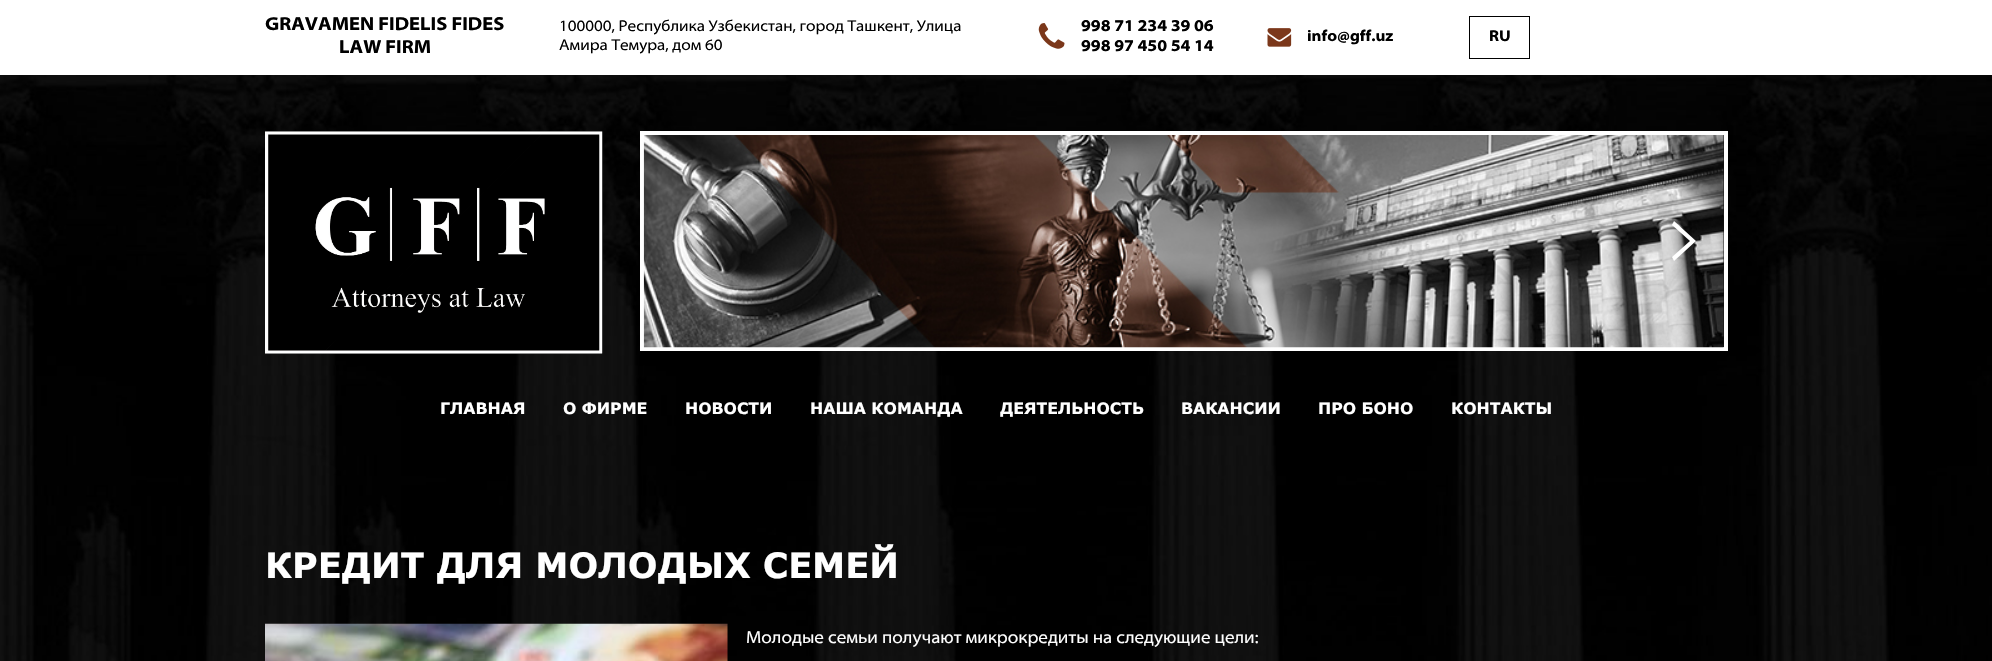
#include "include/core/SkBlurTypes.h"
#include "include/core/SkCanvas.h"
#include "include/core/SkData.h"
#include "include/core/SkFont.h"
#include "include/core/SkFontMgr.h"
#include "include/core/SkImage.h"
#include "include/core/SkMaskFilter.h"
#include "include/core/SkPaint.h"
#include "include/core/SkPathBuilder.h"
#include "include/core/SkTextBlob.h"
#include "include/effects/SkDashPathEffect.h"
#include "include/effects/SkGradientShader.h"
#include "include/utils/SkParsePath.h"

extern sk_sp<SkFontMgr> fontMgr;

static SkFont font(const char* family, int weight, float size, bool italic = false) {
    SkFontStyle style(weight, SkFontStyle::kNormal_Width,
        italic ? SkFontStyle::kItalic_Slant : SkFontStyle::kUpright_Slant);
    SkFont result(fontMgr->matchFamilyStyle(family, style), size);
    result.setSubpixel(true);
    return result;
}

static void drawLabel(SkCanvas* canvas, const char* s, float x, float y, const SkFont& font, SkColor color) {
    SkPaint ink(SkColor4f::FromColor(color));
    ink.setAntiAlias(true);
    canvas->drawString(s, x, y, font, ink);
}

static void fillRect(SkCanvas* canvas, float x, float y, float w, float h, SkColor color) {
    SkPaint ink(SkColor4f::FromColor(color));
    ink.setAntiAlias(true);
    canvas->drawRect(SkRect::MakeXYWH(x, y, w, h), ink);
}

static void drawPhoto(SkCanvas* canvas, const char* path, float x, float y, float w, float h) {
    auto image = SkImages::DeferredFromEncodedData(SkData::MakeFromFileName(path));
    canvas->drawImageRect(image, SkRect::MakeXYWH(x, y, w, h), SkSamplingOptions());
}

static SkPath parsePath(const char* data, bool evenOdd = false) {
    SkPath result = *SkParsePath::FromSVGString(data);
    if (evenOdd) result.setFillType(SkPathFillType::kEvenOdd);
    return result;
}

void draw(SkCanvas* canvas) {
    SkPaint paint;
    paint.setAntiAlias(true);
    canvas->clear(0xFFFFFFFF);
    drawPhoto(canvas, "assets/img1.png", 0, 75, 1992, 586);
    SkFont font1 = font("Myriad", 700, 18.9f);
    drawLabel(canvas, "GRAVAMEN FIDELIS FIDES", 265, 30, font1, 0xFF000000);
    drawLabel(canvas, "LAW FIRM", 339, 53, font1, 0xFF000000);
    SkFont font2 = font("Myriad", 400, 15.75f);
    drawLabel(canvas, "100000, Республика Узбекистан, город Ташкент, Улица", 559, 31, font2, 0xFF000000);
    drawLabel(canvas, "Амира Темура, дом 60", 559, 50, font2, 0xFF000000);
    drawPhoto(canvas, "assets/img2.png", 1038, 23, 27, 26);
    SkFont font3 = font("Myriad", 700, 16.5f);
    drawLabel(canvas, "998 71 234 39 06", 1081, 31, font3, 0xFF000000);
    drawLabel(canvas, "998 97 450 54 14", 1081, 51, font3, 0xFF000000);
    drawPhoto(canvas, "assets/img3.png", 1267, 28, 25, 19);
    SkFont font4 = font("Myriad", 700, 15.75f);
    drawLabel(canvas, "info@gff.uz", 1307, 41, font4, 0xFF000000);
    paint.setStroke(true);
    paint.setStrokeWidth(1);
    paint.setColor(0xFF000000);
    canvas->drawRect(SkRect::MakeXYWH(1469.5f, 16.5f, 60, 42), paint);
    drawLabel(canvas, "RU", 1489, 41, font4, 0xFF000000);
    canvas->save();
    canvas->clipRect(SkRect::MakeXYWH(265, 131, 338, 223));
    paint.setStroke(false);
    {
        const SkColor colors[] = {0xFF000000, 0xFFFFFFFF, 0xFF000000};
        const float stops[] = {0.3f, 0.5f, 0.7f};
        const SkPoint ends[] = {{-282, -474}, {434, 242}};
        paint.setShader(SkGradientShader::MakeLinear(ends, colors, stops, 3, SkTileMode::kClamp));
        paint.setAlpha(255);
    }
    canvas->drawPath(parsePath("M311-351L669 7L198 478L-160 120Z"), paint);
    {
        const SkColor colors[] = {0xFF000000, 0xFFFFFFFF, 0xFF000000};
        const float stops[] = {0.3f, 0.5f, 0.7f};
        const SkPoint ends[] = {{434, 242}, {1150, 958}};
        paint.setShader(SkGradientShader::MakeLinear(ends, colors, stops, 3, SkTileMode::kClamp));
        paint.setAlpha(255);
    }
    canvas->drawPath(parsePath("M669 7L1027 365L556 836L198 478Z"), paint);
    canvas->restore();
    drawPhoto(canvas, "assets/img4.png", 265, 131, 338, 223);
    fillRect(canvas, 1723, 186, 1, 14, 0xFF000000);
    paint.setStroke(true);
    paint.setStrokeWidth(4);
    paint.setShader(nullptr);
    paint.setColor(0xFFFFFFFF);
    canvas->drawRect(SkRect::MakeXYWH(642, 133, 1084, 216), paint);
    drawPhoto(canvas, "assets/img5.png", 643, 135, 1081, 213);
    paint.setStroke(false);
    paint.setColor(0x4DFFFFFF);
    canvas->drawPath(parsePath("M672 241L694 261L696 257L678 241L696 225L694 221Z"), paint);
    paint.setColor(0xFFFFFFFF);
    canvas->drawPath(parsePath("M1696 241L1674 221L1672 225L1690 241L1672 257L1674 261Z"), paint);
    SkFont font5 = font("Verdana", 700, 15.75f);
    drawLabel(canvas, "ГЛАВНАЯ", 440, 414, font5, 0xFFFFFFFF);
    drawLabel(canvas, "О ФИРМЕ", 563, 414, font5, 0xFFFFFFFF);
    drawLabel(canvas, "НОВОСТИ", 685, 414, font5, 0xFFFFFFFF);
    drawLabel(canvas, "НАША КОМАНДА", 810, 414, font5, 0xFFFFFFFF);
    drawLabel(canvas, "ДЕЯТЕЛЬНОСТЬ", 1000, 414, font5, 0xFFFFFFFF);
    drawLabel(canvas, "ВАКАНСИИ", 1181, 414, font5, 0xFFFFFFFF);
    drawLabel(canvas, "ПРО БОНО", 1318, 414, font5, 0xFFFFFFFF);
    drawLabel(canvas, "КОНТАКТЫ", 1451, 414, font5, 0xFFFFFFFF);
    SkFont font6 = font("Verdana", 700, 35);
    drawLabel(canvas, "КРЕДИТ ДЛЯ МОЛОДЫХ СЕМЕЙ", 265, 578, font6, 0xFFFFFFFF);
    drawPhoto(canvas, "assets/img6.png", 265, 623, 463, 38);
    SkFont font7 = font("Myriad", 400, 17.5f);
    drawLabel(canvas, "Молодые семьи получают микрокредиты на следующие цели:", 746, 643, font7, 0xFFFFFFFF);
}
